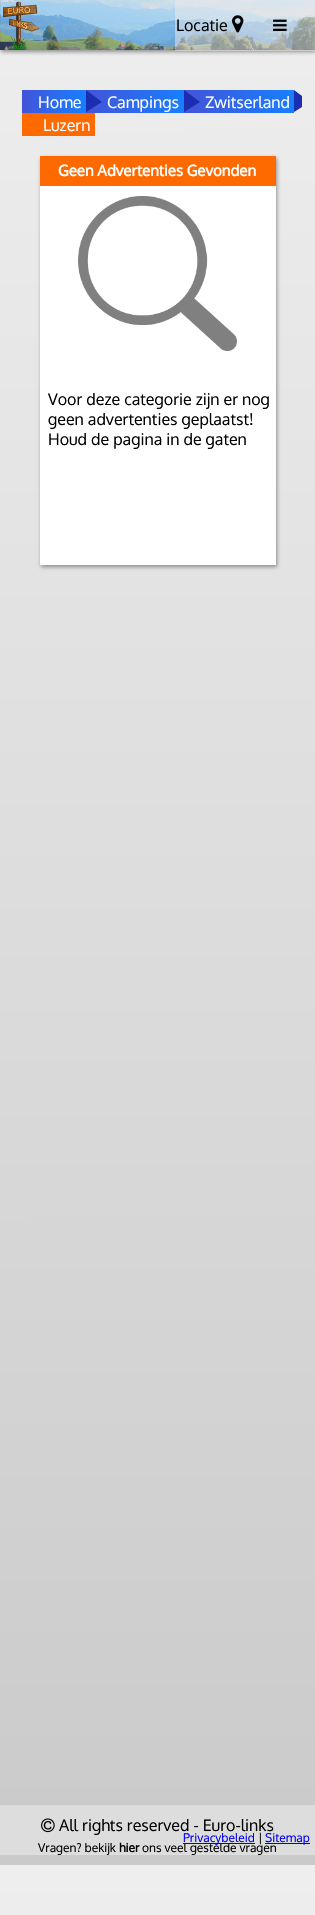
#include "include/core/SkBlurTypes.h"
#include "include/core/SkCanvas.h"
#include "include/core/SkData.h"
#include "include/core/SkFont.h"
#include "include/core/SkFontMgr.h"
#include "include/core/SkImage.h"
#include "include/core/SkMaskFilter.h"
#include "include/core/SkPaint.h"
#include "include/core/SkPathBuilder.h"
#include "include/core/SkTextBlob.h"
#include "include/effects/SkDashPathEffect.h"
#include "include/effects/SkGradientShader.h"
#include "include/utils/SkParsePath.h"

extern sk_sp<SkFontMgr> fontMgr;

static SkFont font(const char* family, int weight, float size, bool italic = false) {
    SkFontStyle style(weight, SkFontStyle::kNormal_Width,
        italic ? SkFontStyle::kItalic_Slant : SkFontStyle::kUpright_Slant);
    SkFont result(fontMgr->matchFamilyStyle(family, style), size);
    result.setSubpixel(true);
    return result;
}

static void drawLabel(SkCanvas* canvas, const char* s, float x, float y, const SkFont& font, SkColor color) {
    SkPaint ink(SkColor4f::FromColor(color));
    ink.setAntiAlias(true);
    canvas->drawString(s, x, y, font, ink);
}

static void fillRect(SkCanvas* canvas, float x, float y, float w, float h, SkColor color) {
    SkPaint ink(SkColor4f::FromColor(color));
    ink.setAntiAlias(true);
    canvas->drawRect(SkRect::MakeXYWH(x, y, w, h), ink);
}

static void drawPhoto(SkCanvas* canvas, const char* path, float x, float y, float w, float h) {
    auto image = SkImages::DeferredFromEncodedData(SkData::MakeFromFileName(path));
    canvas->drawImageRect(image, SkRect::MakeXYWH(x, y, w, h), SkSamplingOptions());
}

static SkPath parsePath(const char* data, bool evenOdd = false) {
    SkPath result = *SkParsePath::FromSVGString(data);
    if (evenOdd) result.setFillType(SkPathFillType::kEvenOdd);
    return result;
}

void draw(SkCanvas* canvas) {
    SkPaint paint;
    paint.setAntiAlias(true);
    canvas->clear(0xFFFFFFFF);
    {
        const SkColor colors[] = {0xFFEEEEEE, 0xFFCACACA};
        const float stops[] = {0, 1};
        const SkPoint ends[] = {{157, 0}, {158, 1865}};
        paint.setShader(SkGradientShader::MakeLinear(ends, colors, stops, 2, SkTileMode::kClamp));
        paint.setAlpha(255);
    }
    canvas->drawRect(SkRect::MakeXYWH(0, 50, 315, 1815), paint);
    {
        const SkColor colors[] = {0xFFEEEEEE, 0xFFCACACA};
        const float stops[] = {0, 1};
        const SkPoint ends[] = {{157, 1865}, {158, 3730}};
        paint.setShader(SkGradientShader::MakeLinear(ends, colors, stops, 2, SkTileMode::kClamp));
        paint.setAlpha(255);
    }
    canvas->drawRect(SkRect::MakeXYWH(0, 1865, 315, 50), paint);
    paint.setShader(nullptr);
    paint.setColor(0x80323232);
    paint.setMaskFilter(SkMaskFilter::MakeBlur(kNormal_SkBlurStyle, 2));
    canvas->drawRect(SkRect::MakeXYWH(1, 2, 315, 50), paint);
    paint.setMaskFilter(nullptr);
    drawPhoto(canvas, "assets/img1.png", 0, 0, 315, 50);
    drawPhoto(canvas, "assets/img2.png", 0, 1, 40, 49);
    fillRect(canvas, 175, 0, 70, 51, 0x80EFE9E9);
    SkFont font1 = font("Oxygen", 400, 16);
    drawLabel(canvas, "Locatie", 176, 31, font1, 0xFF000000);
    drawPhoto(canvas, "assets/img3.png", 232, 15, 12, 18);
    fillRect(canvas, 245, 0, 70, 51, 0x80EFE9E9);
    drawPhoto(canvas, "assets/img4.png", 273, 19, 14, 12);
    {
        const SkColor colors[] = {0xFF4354D8, 0xFF177FFF};
        const float stops[] = {0, 1};
        const SkPoint ends[] = {{22, 102}, {86, 102}};
        paint.setShader(SkGradientShader::MakeLinear(ends, colors, stops, 2, SkTileMode::kClamp));
        paint.setAlpha(255);
    }
    canvas->drawRect(SkRect::MakeXYWH(22, 90, 64, 23), paint);
    drawLabel(canvas, "Home", 38, 108, font1, 0xFFFFFFFF);
    {
        const SkColor colors[] = {0xFF4354D8, 0xFF177FFF};
        const float stops[] = {0, 1};
        const SkPoint ends[] = {{86, 102}, {184, 102}};
        paint.setShader(SkGradientShader::MakeLinear(ends, colors, stops, 2, SkTileMode::kClamp));
        paint.setAlpha(255);
    }
    canvas->drawRect(SkRect::MakeXYWH(86, 90, 98, 23), paint);
    paint.setShader(nullptr);
    paint.setColor(0xFF1B2DB0);
    canvas->drawPath(parsePath("M86 112V90L102 102Z"), paint);
    drawLabel(canvas, "Campings", 107, 108, font1, 0xFFFFFFFF);
    {
        const SkColor colors[] = {0xFF4354D8, 0xFF177FFF};
        const float stops[] = {0, 1};
        const SkPoint ends[] = {{184, 102}, {294, 102}};
        paint.setShader(SkGradientShader::MakeLinear(ends, colors, stops, 2, SkTileMode::kClamp));
        paint.setAlpha(255);
    }
    canvas->drawRect(SkRect::MakeXYWH(184, 90, 110, 23), paint);
    paint.setShader(nullptr);
    paint.setColor(0xFF1B2DB0);
    canvas->drawPath(parsePath("M184 112V90L200 102Z"), paint);
    drawLabel(canvas, "Zwitserland", 205, 108, font1, 0xFFFFFFFF);
    canvas->save();
    canvas->clipRect(SkRect::MakeXYWH(22, 90, 280, 46));
    canvas->drawPath(parsePath("M294 112V90L310 102Z"), paint);
    canvas->restore();
    fillRect(canvas, 22, 113, 73, 23, 0xFFFF6A00);
    drawLabel(canvas, "Luzern", 43, 131, font1, 0xFFFFFFFF);
    paint.setColor(0x80323232);
    paint.setMaskFilter(SkMaskFilter::MakeBlur(kNormal_SkBlurStyle, 2));
    canvas->drawRect(SkRect::MakeXYWH(41, 158, 236, 409), paint);
    paint.setMaskFilter(nullptr);
    fillRect(canvas, 40, 186, 236, 379, 0xFFFFFFFF);
    fillRect(canvas, 40, 156, 236, 30, 0xFFFF6A00);
    SkFont font2 = font("Oxygen", 700, 15);
    drawLabel(canvas, "Geen Advertenties Gevonden", 58, 176, font2, 0xFFFFFFFF);
    drawPhoto(canvas, "assets/img5.png", 78, 196, 159, 155);
    drawLabel(canvas, "Voor deze categorie zijn er nog", 48, 405, font1, 0xFF000000);
    drawLabel(canvas, "geen advertenties geplaatst!", 48, 425, font1, 0xFF000000);
    drawLabel(canvas, "Houd de pagina in de gaten", 48, 445, font1, 0xFF000000);
    fillRect(canvas, 0, 1805, 315, 50, 0xFFDDDDDD);
    drawPhoto(canvas, "assets/img6.png", 41, 1818, 14, 15);
    drawLabel(canvas, "All rights reserved - Euro-links", 59, 1831, font1, 0xFF000000);
    SkFont font3 = font("Oxygen", 400, 12);
    drawLabel(canvas, "ons veel gestelde vragen", 142, 1852, font3, 0xFF000000);
    fillRect(canvas, 183, 1843, 72, 1, 0xFF0000EE);
    drawLabel(canvas, "Privacybeleid", 183, 1842, font3, 0xFF0000EE);
    drawLabel(canvas, "|", 258, 1842, font3, 0xFF000000);
    fillRect(canvas, 265, 1843, 45, 1, 0xFF0000EE);
    drawLabel(canvas, "Sitemap", 265, 1842, font3, 0xFF0000EE);
    drawLabel(canvas, "Vragen? bekijk", 38, 1852, font3, 0xFF000000);
    SkFont font4 = font("Oxygen", 700, 12);
    drawLabel(canvas, "hier", 119, 1852, font4, 0xFF000000);
}
